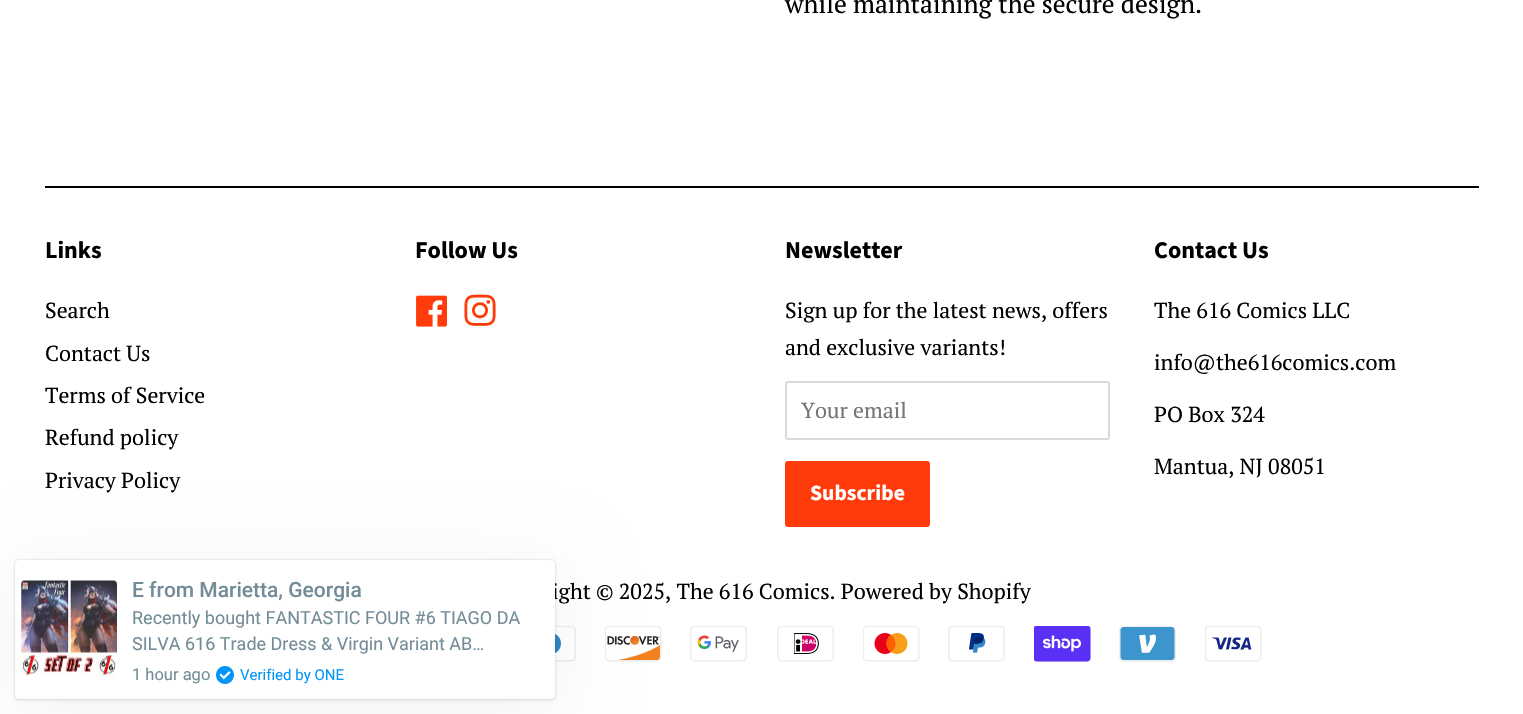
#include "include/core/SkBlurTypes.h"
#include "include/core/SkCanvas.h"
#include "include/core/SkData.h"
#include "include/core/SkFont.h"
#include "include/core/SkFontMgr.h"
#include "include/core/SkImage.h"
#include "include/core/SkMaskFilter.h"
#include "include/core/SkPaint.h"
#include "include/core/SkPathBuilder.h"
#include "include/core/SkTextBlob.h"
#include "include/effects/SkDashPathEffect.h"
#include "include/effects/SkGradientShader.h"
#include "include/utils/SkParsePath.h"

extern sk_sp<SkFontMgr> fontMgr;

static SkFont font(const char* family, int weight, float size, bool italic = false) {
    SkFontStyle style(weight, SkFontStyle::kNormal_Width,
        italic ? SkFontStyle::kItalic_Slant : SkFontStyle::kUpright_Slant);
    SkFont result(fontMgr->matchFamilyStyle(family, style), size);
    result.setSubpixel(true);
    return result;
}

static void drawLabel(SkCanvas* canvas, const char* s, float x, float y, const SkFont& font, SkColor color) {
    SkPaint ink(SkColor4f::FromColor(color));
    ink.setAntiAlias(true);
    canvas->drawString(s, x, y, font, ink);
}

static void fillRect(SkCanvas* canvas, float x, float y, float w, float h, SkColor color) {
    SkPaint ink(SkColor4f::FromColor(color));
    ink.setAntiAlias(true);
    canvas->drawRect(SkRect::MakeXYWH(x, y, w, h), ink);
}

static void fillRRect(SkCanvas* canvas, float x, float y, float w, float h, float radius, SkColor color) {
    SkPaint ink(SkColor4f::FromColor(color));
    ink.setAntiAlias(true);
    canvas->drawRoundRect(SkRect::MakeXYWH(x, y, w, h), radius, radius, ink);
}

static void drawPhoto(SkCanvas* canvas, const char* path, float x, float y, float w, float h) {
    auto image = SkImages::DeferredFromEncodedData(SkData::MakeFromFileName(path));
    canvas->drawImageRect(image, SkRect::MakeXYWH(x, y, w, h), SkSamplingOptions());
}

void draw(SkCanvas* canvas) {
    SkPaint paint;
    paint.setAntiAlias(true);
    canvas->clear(0xFFFFFFFF);
    SkFont font1 = font("PT Serif", 400, 25.5f);
    drawLabel(canvas, "while maintaining the secure design.", 785, 13, font1, 0xFF000000);
    fillRect(canvas, 45, 186, 1434, 2, 0xFF000000);
    SkFont font2 = font("Source Sans Pro", 700, 24);
    drawLabel(canvas, "Links", 45, 258, font2, 0xFF000000);
    SkFont font3 = font("PT Serif", 400, 21.7f);
    drawLabel(canvas, "Search", 45, 318, font3, 0xFF000000);
    drawLabel(canvas, "Contact Us", 45, 361, font3, 0xFF000000);
    drawLabel(canvas, "Terms of Service", 45, 403, font3, 0xFF000000);
    drawLabel(canvas, "Refund policy", 45, 445, font3, 0xFF000000);
    drawLabel(canvas, "Privacy Policy", 45, 488, font3, 0xFF000000);
    drawLabel(canvas, "Follow Us", 415, 258, font2, 0xFF000000);
    drawPhoto(canvas, "assets/img1.png", 416, 295, 31, 32);
    drawPhoto(canvas, "assets/img2.png", 464, 294, 32, 32);
    drawLabel(canvas, "Newsletter", 785, 258, font2, 0xFF000000);
    drawLabel(canvas, "Sign up for the latest news, offers", 785, 318, font3, 0xFF000000);
    drawLabel(canvas, "and exclusive variants!", 785, 355, font3, 0xFF000000);
    paint.setStroke(true);
    paint.setStrokeWidth(2);
    paint.setColor(0xFFD9D9D9);
    canvas->drawRoundRect(SkRect::MakeXYWH(786, 382, 323, 57), 2, 2, paint);
    drawLabel(canvas, "Your email", 801, 418, font3, 0xFF757575);
    fillRRect(canvas, 785, 461, 145, 66, 3, 0xFFFF3A0B);
    SkFont font4 = font("Source Sans Pro", 700, 21.7f);
    drawLabel(canvas, "Subscribe", 810, 500, font4, 0xFFFFFFFF);
    drawLabel(canvas, "Contact Us", 1154, 258, font2, 0xFF000000);
    drawLabel(canvas, "The 616 Comics LLC", 1154, 318, font3, 0xFF000000);
    drawLabel(canvas, "info@the616comics.com", 1154, 370, font3, 0xFF000000);
    drawLabel(canvas, "PO Box 324", 1154, 422, font3, 0xFF000000);
    drawLabel(canvas, "Mantua, NJ 08051", 1154, 474, font3, 0xFF000000);
    drawLabel(canvas, "ight © 2025, The 616 Comics. Powered by Shopify", 552, 599, font3, 0xFF000000);
    drawPhoto(canvas, "assets/img3.png", 555, 626, 21, 36);
    drawPhoto(canvas, "assets/img4.png", 605, 626, 57, 36);
    drawPhoto(canvas, "assets/img5.png", 690, 626, 57, 36);
    drawPhoto(canvas, "assets/img6.png", 777, 626, 57, 36);
    drawPhoto(canvas, "assets/img7.png", 863, 626, 57, 36);
    drawPhoto(canvas, "assets/img8.png", 948, 626, 57, 36);
    drawPhoto(canvas, "assets/img9.png", 1034, 626, 57, 36);
    drawPhoto(canvas, "assets/img10.png", 1119, 626, 57, 36);
    drawPhoto(canvas, "assets/img11.png", 1205, 626, 57, 36);
    paint.setStroke(false);
    paint.setColor(0x0D000000);
    paint.setMaskFilter(SkMaskFilter::MakeBlur(kNormal_SkBlurStyle, 37.5f));
    canvas->drawRoundRect(SkRect::MakeXYWH(15, 572, 540, 139), 4, 4, paint);
    paint.setMaskFilter(nullptr);
    paint.setMaskFilter(SkMaskFilter::MakeBlur(kNormal_SkBlurStyle, 1.5f));
    canvas->drawRoundRect(SkRect::MakeXYWH(15, 561, 540, 140), 4, 4, paint);
    paint.setMaskFilter(nullptr);
    paint.setColor(0x33000000);
    paint.setMaskFilter(SkMaskFilter::MakeBlur(kNormal_SkBlurStyle, 1));
    canvas->drawRoundRect(SkRect::MakeXYWH(15, 560, 540, 139), 4, 4, paint);
    paint.setMaskFilter(nullptr);
    fillRRect(canvas, 15, 560, 540, 139, 4, 0xFFFFFFFF);
    drawPhoto(canvas, "assets/img12.png", 21, 580, 96, 97);
    SkFont font5 = font("Roboto", 500, 21);
    drawLabel(canvas, "E from Marietta, Georgia", 132, 597, font5, 0xFF738C98);
    SkFont font6 = font("Roboto", 400, 18);
    drawLabel(canvas, "Recently bought FANTASTIC FOUR #6 TIAGO DA", 132, 624, font6, 0xFF738C98);
    drawLabel(canvas, "SILVA 616 Trade Dress & Virgin Variant AB…", 132, 650, font6, 0xFF738C98);
    SkFont font7 = font("Roboto", 400, 16.5f);
    drawLabel(canvas, "1 hour ago", 132, 680, font7, 0xFF738C98);
    drawPhoto(canvas, "assets/img13.png", 216, 666, 18, 18);
    SkFont font8 = font("Roboto", 400, 15);
    drawLabel(canvas, "Verified by ONE", 240, 680, font8, 0xFF0095F7);
}
